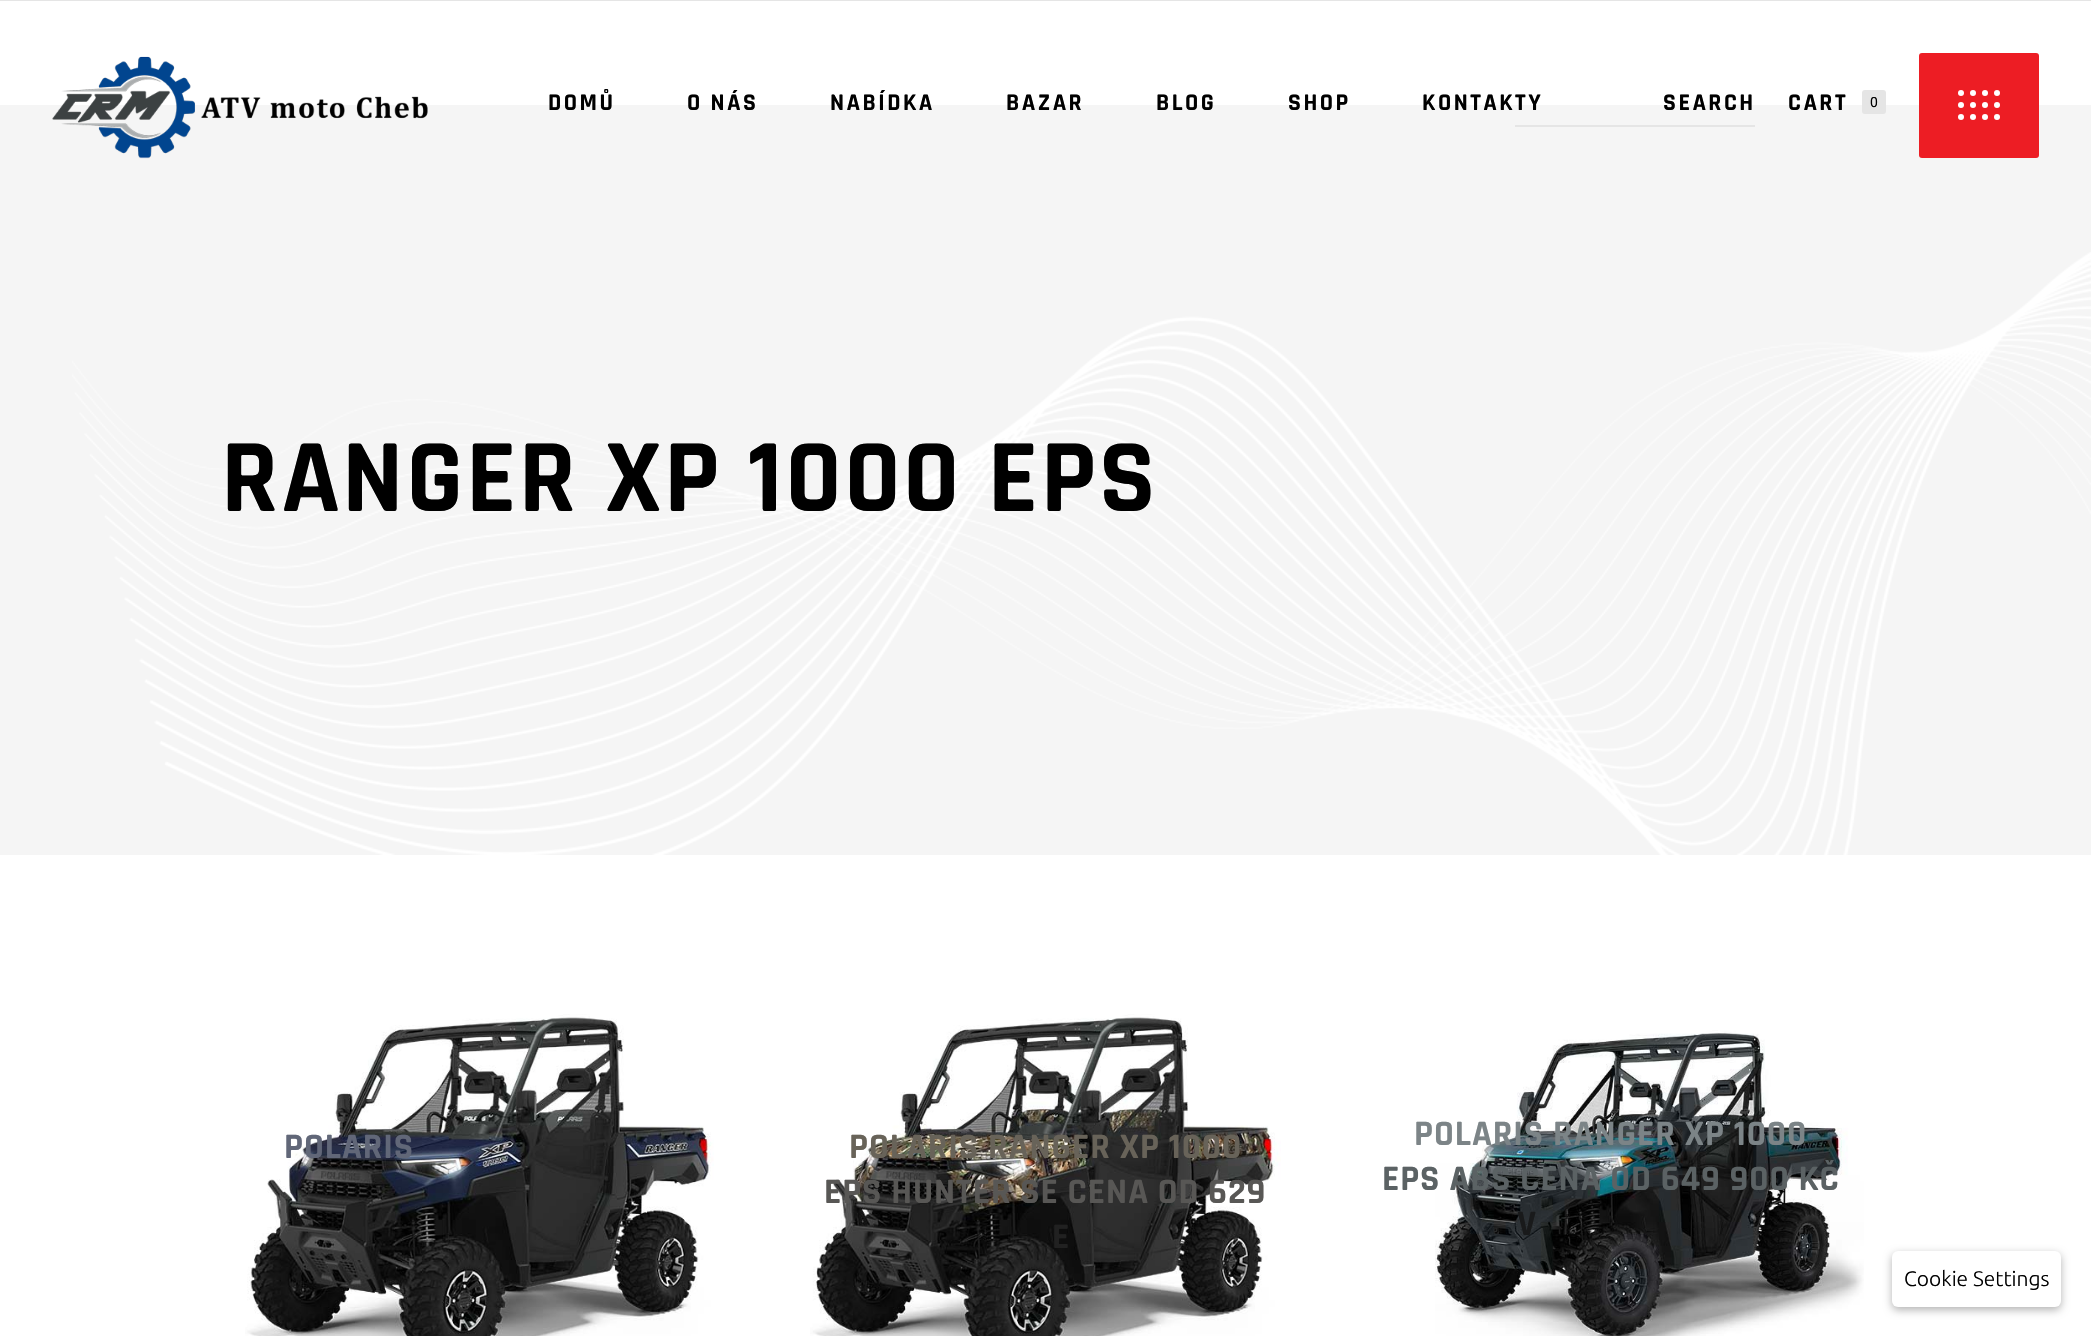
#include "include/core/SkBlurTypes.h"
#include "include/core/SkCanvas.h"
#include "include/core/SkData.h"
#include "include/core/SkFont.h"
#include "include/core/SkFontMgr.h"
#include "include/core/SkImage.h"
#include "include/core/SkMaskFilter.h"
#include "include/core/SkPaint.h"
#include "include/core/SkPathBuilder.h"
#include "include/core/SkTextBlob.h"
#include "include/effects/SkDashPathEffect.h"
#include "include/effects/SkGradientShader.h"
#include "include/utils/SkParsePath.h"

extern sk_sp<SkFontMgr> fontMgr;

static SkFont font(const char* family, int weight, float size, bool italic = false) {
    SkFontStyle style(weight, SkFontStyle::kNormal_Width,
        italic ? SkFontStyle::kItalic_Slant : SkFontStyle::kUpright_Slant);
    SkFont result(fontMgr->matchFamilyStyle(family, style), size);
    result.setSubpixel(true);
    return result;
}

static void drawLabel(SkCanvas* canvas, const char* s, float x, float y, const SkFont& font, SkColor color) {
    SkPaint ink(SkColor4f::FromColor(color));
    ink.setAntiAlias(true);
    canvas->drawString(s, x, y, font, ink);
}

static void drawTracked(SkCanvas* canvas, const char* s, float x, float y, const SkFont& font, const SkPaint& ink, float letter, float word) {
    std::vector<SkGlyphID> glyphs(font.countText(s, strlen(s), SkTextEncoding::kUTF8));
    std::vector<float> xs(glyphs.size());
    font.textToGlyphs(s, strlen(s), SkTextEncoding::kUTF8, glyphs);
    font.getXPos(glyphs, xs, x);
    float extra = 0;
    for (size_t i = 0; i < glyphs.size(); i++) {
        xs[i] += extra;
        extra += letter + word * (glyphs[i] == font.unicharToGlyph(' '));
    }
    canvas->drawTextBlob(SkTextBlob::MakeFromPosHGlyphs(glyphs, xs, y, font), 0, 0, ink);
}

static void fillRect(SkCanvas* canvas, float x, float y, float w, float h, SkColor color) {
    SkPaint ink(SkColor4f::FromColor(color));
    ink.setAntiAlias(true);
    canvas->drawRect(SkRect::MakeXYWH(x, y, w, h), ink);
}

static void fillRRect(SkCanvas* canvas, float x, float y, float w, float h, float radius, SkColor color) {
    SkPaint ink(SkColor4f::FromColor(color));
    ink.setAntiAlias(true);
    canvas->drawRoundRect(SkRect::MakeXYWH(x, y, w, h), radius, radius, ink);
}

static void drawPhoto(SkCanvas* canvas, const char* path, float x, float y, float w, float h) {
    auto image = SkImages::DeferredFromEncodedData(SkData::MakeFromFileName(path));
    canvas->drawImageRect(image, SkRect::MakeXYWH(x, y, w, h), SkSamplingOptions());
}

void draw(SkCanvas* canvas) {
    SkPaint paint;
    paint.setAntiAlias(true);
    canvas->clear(0xFFFFFFFF);
    fillRect(canvas, 0, 0, 2091, 1, 0xFFE5E5E5);
    fillRect(canvas, 0, 105, 2091, 750, 0xFFF5F5F5);
    drawPhoto(canvas, "assets/img1.png", 52, 56, 376, 103);
    SkFont font1 = font("Rajdhani", 700, 24);
    paint.setColor(0xFF000000);
    drawTracked(canvas, "DOMŮ", 548, 110, font1, paint, 2.5f, 0);
    drawTracked(canvas, "O NÁS", 687, 110, font1, paint, 2.5f, 0);
    drawTracked(canvas, "NABÍDKA", 830, 110, font1, paint, 2.5f, 0);
    drawTracked(canvas, "BAZAR", 1006, 110, font1, paint, 2.5f, 0);
    drawTracked(canvas, "BLOG", 1156, 110, font1, paint, 2.5f, 0);
    drawTracked(canvas, "SHOP", 1288, 110, font1, paint, 2.5f, 0);
    drawTracked(canvas, "KONTAKTY", 1422, 110, font1, paint, 2.5f, 0);
    fillRect(canvas, 1515, 125, 240, 2, 0xFFE5E5E5);
    drawTracked(canvas, "SEARCH", 1663, 110, font1, paint, 2.5f, 0);
    drawTracked(canvas, "CART", 1788, 110, font1, paint, 2.5f, 0);
    fillRRect(canvas, 1862, 90, 24, 24, 3, 0xFFE5E5E5);
    SkFont font2 = font("Heebo", 400, 14);
    drawLabel(canvas, "0", 1870, 107, font2, 0xFF000000);
    fillRRect(canvas, 1919, 53, 120, 105, 3, 0xFFED1D24);
    paint.setColor(0xFFFFFFFF);
    canvas->drawCircle(1961, 93, 3, paint);
    canvas->drawCircle(1973, 93, 3, paint);
    canvas->drawCircle(1985, 93, 3, paint);
    canvas->drawCircle(1997, 93, 3, paint);
    canvas->drawCircle(1961, 105, 3, paint);
    canvas->drawCircle(1973, 105, 3, paint);
    canvas->drawCircle(1985, 105, 3, paint);
    canvas->drawCircle(1997, 105, 3, paint);
    canvas->drawCircle(1961, 117, 3, paint);
    canvas->drawCircle(1973, 117, 3, paint);
    canvas->drawCircle(1985, 117, 3, paint);
    canvas->drawCircle(1997, 117, 3, paint);
    drawPhoto(canvas, "assets/img2.png", 72, 252, 2019, 603);
    SkFont font3 = font("Rajdhani", 700, 105);
    paint.setColor(0xFF000000);
    drawTracked(canvas, "RANGER XP 1000 EPS", 221, 511, font3, paint, 2.6f, 0);
    drawPhoto(canvas, "assets/img3.png", 245, 1014, 469, 322);
    SkFont font4 = font("Rajdhani", 700, 36);
    paint.setColor(0xFF616778);
    drawTracked(canvas, "POLARIS", 284, 1158, font4, paint, 0.9f, 0);
    drawPhoto(canvas, "assets/img4.png", 810, 1014, 471, 322);
    paint.setColor(0xFF686359);
    drawTracked(canvas, "POLARIS RANGER XP 1000", 849, 1158, font4, paint, 0.9f, 0);
    paint.setColor(0xFF585755);
    drawTracked(canvas, "EPS HUNTER SE CENA OD 629", 824, 1203, font4, paint, 0.9f, 0);
    paint.setColor(0xFF212121);
    drawTracked(canvas, "E", 1052, 1248, font4, paint, 0.9f, 0);
    drawPhoto(canvas, "assets/img5.png", 1435, 1030, 429, 306);
    paint.setColor(0xFF7C8487);
    drawTracked(canvas, "POLARIS RANGER XP 1000", 1414, 1145, font4, paint, 0.9f, 0);
    paint.setColor(0xFF5B6264);
    drawTracked(canvas, "EPS ABS CENA OD 649 900 KČ", 1382, 1190, font4, paint, 0.9f, 0);
    paint.setColor(0xFF191A1B);
    drawTracked(canvas, "V", 1517, 1235, font4, paint, 0.9f, 0);
    paint.setColor(0x4D000000);
    paint.setMaskFilter(SkMaskFilter::MakeBlur(kNormal_SkBlurStyle, 4.5f));
    canvas->drawRoundRect(SkRect::MakeXYWH(1892, 1254, 169, 56), 6, 6, paint);
    paint.setMaskFilter(nullptr);
    fillRRect(canvas, 1892, 1251, 169, 56, 6, 0xFFFFFFFF);
    SkFont font5 = font("Ubuntu", 300, 21);
    drawLabel(canvas, "Cookie Settings", 1904, 1286, font5, 0xFF000000);
}
